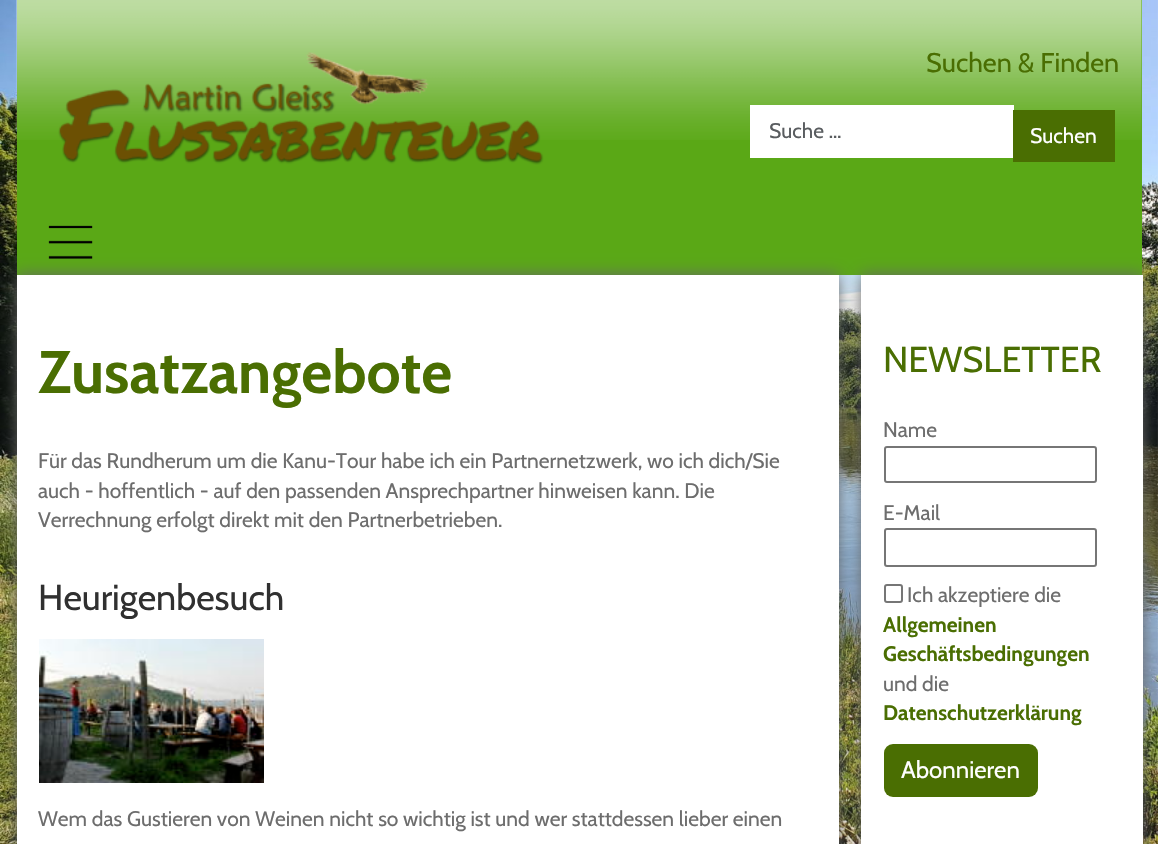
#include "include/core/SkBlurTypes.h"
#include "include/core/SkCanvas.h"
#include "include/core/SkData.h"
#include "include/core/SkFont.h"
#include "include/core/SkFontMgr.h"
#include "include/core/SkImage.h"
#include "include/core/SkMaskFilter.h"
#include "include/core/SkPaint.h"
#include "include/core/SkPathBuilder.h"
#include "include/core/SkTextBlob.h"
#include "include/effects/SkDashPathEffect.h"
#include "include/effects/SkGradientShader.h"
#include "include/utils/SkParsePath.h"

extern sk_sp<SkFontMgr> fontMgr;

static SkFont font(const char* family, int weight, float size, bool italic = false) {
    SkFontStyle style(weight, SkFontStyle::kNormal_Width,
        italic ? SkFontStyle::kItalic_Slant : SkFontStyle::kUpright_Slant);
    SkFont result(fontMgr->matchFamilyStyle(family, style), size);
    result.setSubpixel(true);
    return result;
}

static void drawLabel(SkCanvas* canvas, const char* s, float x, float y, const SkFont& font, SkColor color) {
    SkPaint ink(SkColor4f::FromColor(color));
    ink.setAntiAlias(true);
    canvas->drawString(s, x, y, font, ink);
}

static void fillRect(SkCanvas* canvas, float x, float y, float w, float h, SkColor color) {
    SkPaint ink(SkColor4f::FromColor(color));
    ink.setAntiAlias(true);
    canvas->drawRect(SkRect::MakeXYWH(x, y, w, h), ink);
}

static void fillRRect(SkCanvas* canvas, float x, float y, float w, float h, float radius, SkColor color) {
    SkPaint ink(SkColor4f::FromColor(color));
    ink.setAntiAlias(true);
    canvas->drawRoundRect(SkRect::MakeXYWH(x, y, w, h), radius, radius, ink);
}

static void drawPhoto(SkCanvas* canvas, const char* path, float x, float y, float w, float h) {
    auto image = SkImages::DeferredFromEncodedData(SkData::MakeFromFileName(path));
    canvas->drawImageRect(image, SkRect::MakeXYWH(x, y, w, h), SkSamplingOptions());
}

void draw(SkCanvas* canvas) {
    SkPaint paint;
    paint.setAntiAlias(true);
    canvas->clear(0xFFFFFFFF);
    drawPhoto(canvas, "assets/img1.png", 0, 0, 1158, 844);
    fillRect(canvas, 17, 0, 1125, 275, 0xFF5AA816);
    drawPhoto(canvas, "assets/img2.png", 16, 0, 1126, 140);
    drawPhoto(canvas, "assets/img3.png", 58, 52, 486, 113);
    SkFont font1 = font("Cabin", 400, 27);
    drawLabel(canvas, "Suchen & Finden", 926, 72, font1, 0xFF4A6E02);
    paint.setColor(0xFFFFFFFF);
    canvas->drawRect(SkRect::MakeXYWH(751, 106, 262, 51), paint);
    paint.setStroke(true);
    paint.setStrokeWidth(2);
    canvas->drawRect(SkRect::MakeXYWH(751, 106, 262, 51), paint);
    SkFont font2 = font("Cabin", 400, 21);
    drawLabel(canvas, "Suche …", 769, 138, font2, 0xFF595C5F);
    fillRect(canvas, 1013, 110, 102, 52, 0xFF4A6E02);
    drawLabel(canvas, "Suchen", 1030, 143, font2, 0xFFFFFFFF);
    drawPhoto(canvas, "assets/img4.png", 48, 225, 45, 34);
    paint.setStroke(false);
    paint.setColor(0xFF666666);
    paint.setMaskFilter(SkMaskFilter::MakeBlur(kNormal_SkBlurStyle, 7.5f));
    canvas->drawRect(SkRect::MakeXYWH(17, 275, 822, 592), paint);
    paint.setMaskFilter(nullptr);
    fillRect(canvas, 17, 275, 822, 569, 0xFFFFFFFF);
    SkFont font3 = font("Cabin", 700, 60);
    drawLabel(canvas, "Zusatzangebote", 38, 393, font3, 0xFF4A6E02);
    drawLabel(canvas, "Für das Rundherum um die Kanu-Tour habe ich ein Partnernetzwerk, wo ich dich/Sie", 38, 468, font2, 0xFF6D6D6D);
    drawLabel(canvas, "auch - hoffentlich - auf den passenden Ansprechpartner hinweisen kann. Die", 38, 498, font2, 0xFF6D6D6D);
    drawLabel(canvas, "Verrechnung erfolgt direkt mit den Partnerbetrieben.", 38, 527, font2, 0xFF6D6D6D);
    SkFont font4 = font("Cabin", 400, 36);
    drawLabel(canvas, "Heurigenbesuch", 38, 610, font4, 0xFF303030);
    drawPhoto(canvas, "assets/img5.png", 39, 639, 225, 144);
    drawLabel(canvas, "Wem das Gustieren von Weinen nicht so wichtig ist und wer stattdessen lieber einen", 38, 826, font2, 0xFF6D6D6D);
    paint.setMaskFilter(SkMaskFilter::MakeBlur(kNormal_SkBlurStyle, 7.5f));
    canvas->drawRect(SkRect::MakeXYWH(861, 275, 282, 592), paint);
    paint.setMaskFilter(nullptr);
    fillRect(canvas, 861, 275, 282, 569, 0xFFFFFFFF);
    drawLabel(canvas, "NEWSLETTER", 883, 372, font4, 0xFF4A6E02);
    drawLabel(canvas, "Name", 883, 437, font2, 0xFF6D6D6D);
    paint.setStroke(true);
    paint.setColor(0xFF767676);
    canvas->drawRoundRect(SkRect::MakeXYWH(885, 447, 211, 35), 2, 2, paint);
    drawLabel(canvas, "E-Mail", 883, 520, font2, 0xFF6D6D6D);
    canvas->drawRoundRect(SkRect::MakeXYWH(885, 529, 211, 37), 2, 2, paint);
    canvas->drawRoundRect(SkRect::MakeXYWH(885, 585, 17, 17), 2, 2, paint);
    drawLabel(canvas, "Ich akzeptiere die", 907, 602, font2, 0xFF6D6D6D);
    SkFont font5 = font("Cabin", 700, 21);
    drawLabel(canvas, "Allgemeinen", 883, 632, font5, 0xFF4A6E02);
    drawLabel(canvas, "Geschäftsbedingungen", 883, 661, font5, 0xFF4A6E02);
    drawLabel(canvas, "und die", 883, 691, font2, 0xFF6D6D6D);
    drawLabel(canvas, "Datenschutzerklärung", 883, 720, font5, 0xFF4A6E02);
    fillRRect(canvas, 884, 744, 154, 53, 9, 0xFF4A6E02);
    SkFont font6 = font("Cabin", 400, 24);
    drawLabel(canvas, "Abonnieren", 901, 778, font6, 0xFFFFFFFF);
}
